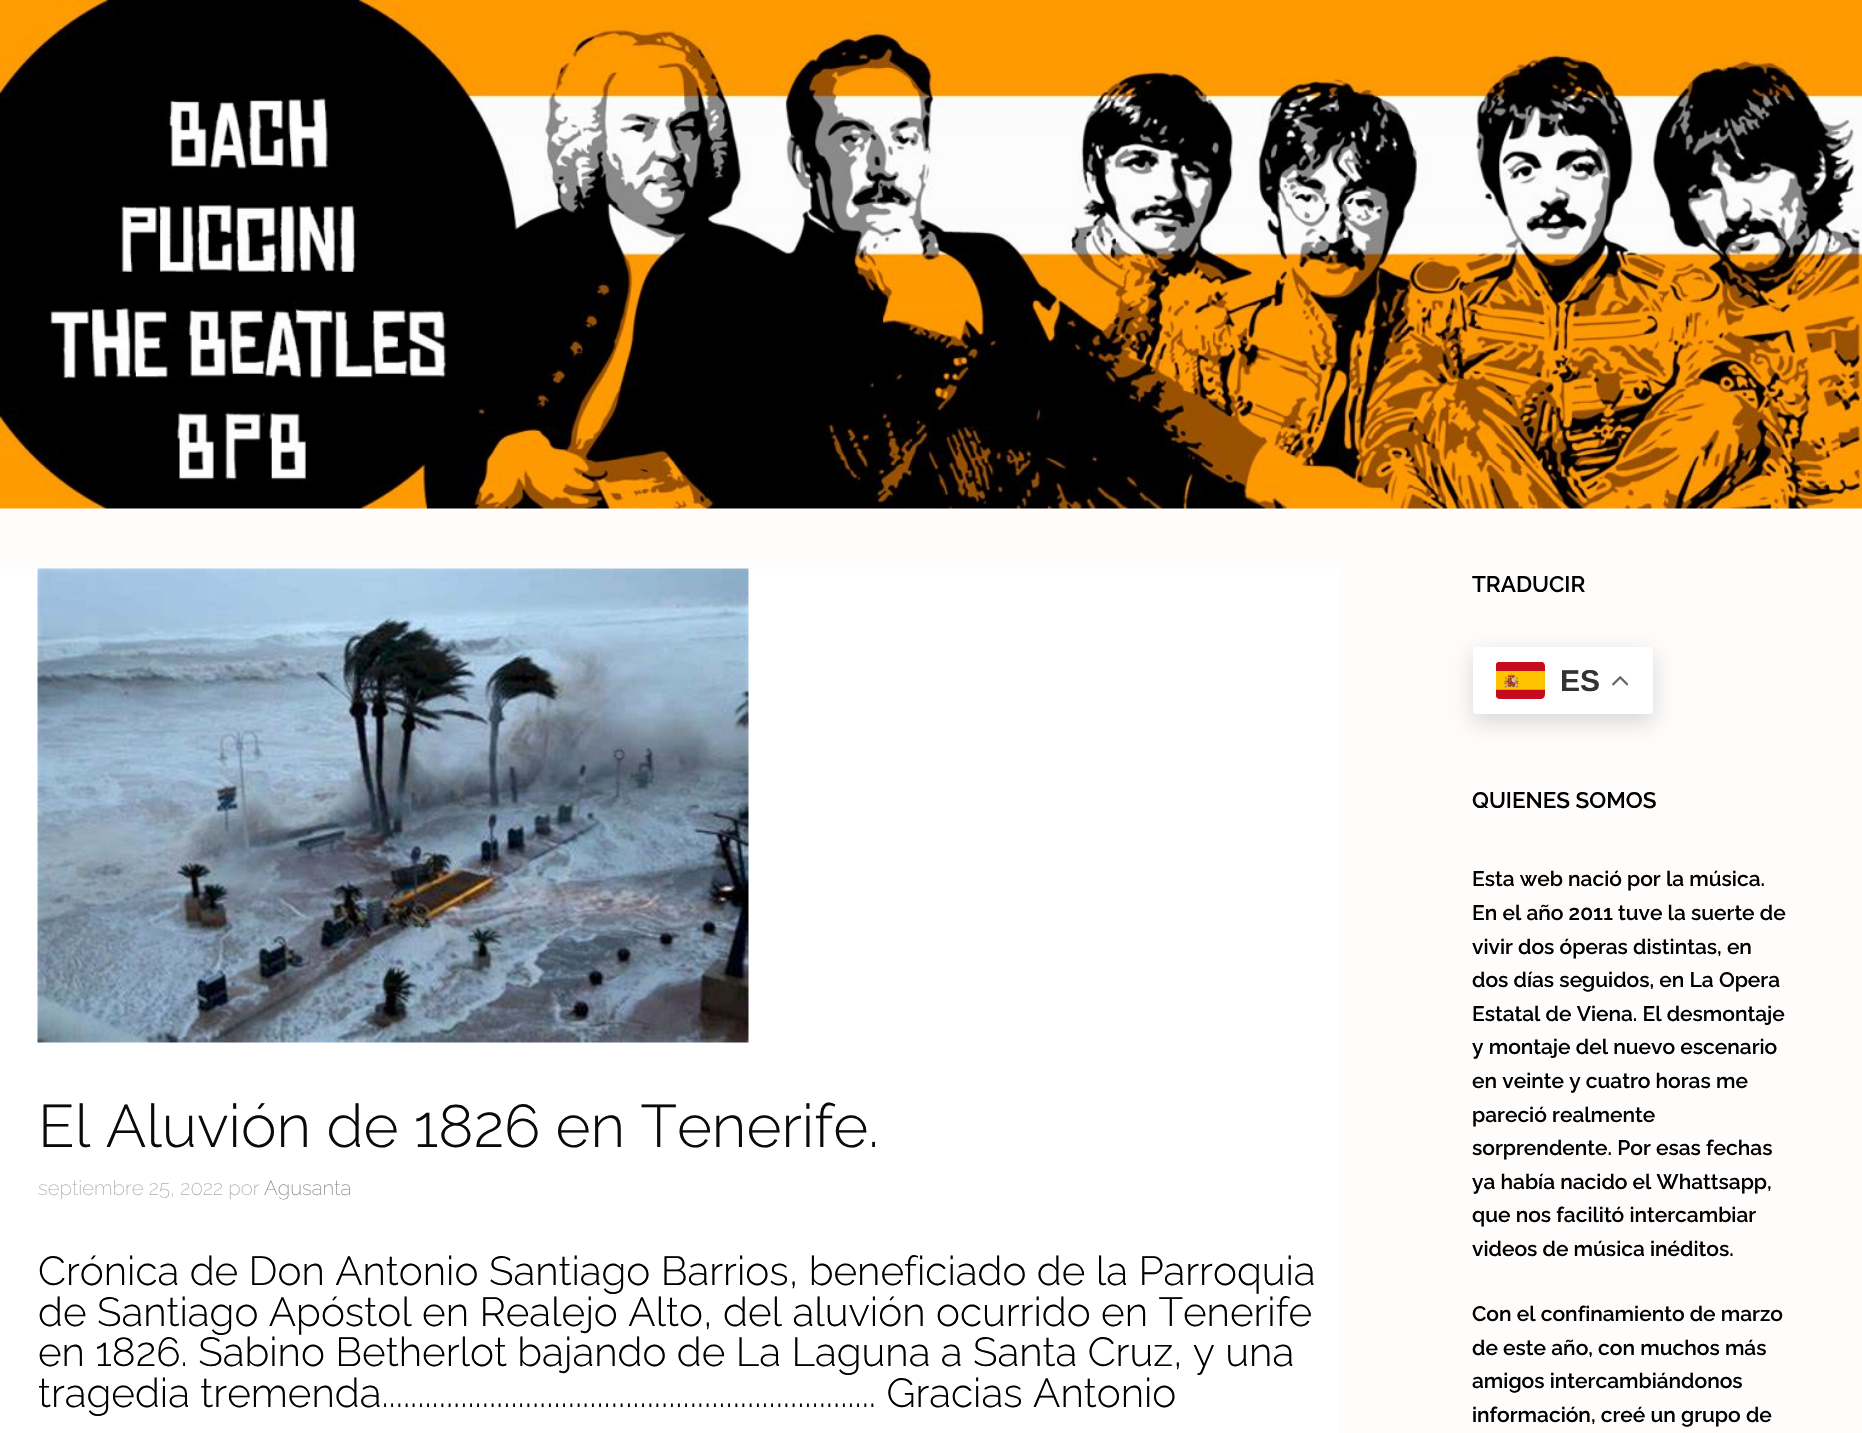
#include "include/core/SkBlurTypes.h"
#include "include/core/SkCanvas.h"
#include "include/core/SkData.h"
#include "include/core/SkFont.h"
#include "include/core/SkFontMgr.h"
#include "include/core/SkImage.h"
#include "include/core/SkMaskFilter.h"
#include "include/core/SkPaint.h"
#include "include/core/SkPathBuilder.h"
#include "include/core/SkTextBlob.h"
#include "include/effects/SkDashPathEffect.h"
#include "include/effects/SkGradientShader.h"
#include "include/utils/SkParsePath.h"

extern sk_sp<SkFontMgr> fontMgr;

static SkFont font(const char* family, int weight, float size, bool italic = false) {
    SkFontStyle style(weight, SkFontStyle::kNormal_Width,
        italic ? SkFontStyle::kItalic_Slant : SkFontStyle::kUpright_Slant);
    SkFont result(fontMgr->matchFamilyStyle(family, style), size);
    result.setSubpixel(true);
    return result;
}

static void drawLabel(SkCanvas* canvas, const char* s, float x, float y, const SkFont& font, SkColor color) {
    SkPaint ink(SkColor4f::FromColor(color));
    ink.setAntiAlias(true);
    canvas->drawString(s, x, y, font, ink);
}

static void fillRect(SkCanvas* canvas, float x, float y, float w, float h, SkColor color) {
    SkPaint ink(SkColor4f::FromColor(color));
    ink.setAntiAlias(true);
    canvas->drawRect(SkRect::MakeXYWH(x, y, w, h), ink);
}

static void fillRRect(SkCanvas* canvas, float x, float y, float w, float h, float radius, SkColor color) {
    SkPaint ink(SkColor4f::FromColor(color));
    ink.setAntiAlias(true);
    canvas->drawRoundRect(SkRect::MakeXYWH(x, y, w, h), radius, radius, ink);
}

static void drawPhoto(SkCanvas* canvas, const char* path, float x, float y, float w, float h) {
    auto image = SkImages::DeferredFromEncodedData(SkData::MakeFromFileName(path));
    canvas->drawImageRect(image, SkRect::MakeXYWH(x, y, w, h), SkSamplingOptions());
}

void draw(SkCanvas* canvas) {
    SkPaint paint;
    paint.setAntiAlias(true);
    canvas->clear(0xFFFFFCFC);
    fillRect(canvas, 0, 508, 1862, 1, 0xFFFFFFFF);
    drawPhoto(canvas, "assets/img1.png", 0, 0, 1862, 509);
    fillRect(canvas, 0, 569, 1338, 864, 0xFFFFFFFF);
    drawPhoto(canvas, "assets/img2.png", 37, 568, 712, 475);
    SkFont font1 = font("Raleway", 300, 60);
    drawLabel(canvas, "El Aluvión de 1826 en Tenerife.", 38, 1147, font1, 0xFF0A0A0A);
    SkFont font2 = font("Raleway", 200, 20.4f);
    drawLabel(canvas, "septiembre 25, 2022 por", 38, 1195, font2, 0xFFB2B2B2);
    drawLabel(canvas, "Agusanta", 264, 1195, font2, 0xFF8E8E8E);
    SkFont font3 = font("Raleway", 300, 40.5f);
    drawLabel(canvas, "Crónica de Don Antonio Santiago Barrios, beneficiado de la Parroquia", 38, 1285, font3, 0xFF000000);
    drawLabel(canvas, "de Santiago Apóstol en Realejo Alto, del aluvión ocurrido en Tenerife", 38, 1326, font3, 0xFF000000);
    drawLabel(canvas, "en 1826. Sabino Betherlot bajando de La Laguna a Santa Cruz, y una", 38, 1366, font3, 0xFF000000);
    drawLabel(canvas, "tragedia tremenda..................................................................... Gracias Antonio", 38, 1407, font3, 0xFF000000);
    SkFont font4 = font("Raleway", 600, 22.5f);
    drawLabel(canvas, "TRADUCIR", 1472, 592, font4, 0xFF000000);
    paint.setColor(0x26000000);
    paint.setMaskFilter(SkMaskFilter::MakeBlur(kNormal_SkBlurStyle, 11));
    canvas->drawRoundRect(SkRect::MakeXYWH(1473, 654, 180, 68), 3, 3, paint);
    paint.setMaskFilter(nullptr);
    fillRRect(canvas, 1473, 647, 180, 67, 3, 0xFFFFFFFF);
    drawPhoto(canvas, "assets/img3.png", 1496, 662, 49, 37);
    SkFont font5 = font("Liberation Sans", 700, 30);
    drawLabel(canvas, "ES", 1560, 691, font5, 0xFF333333);
    drawPhoto(canvas, "assets/img4.png", 1612, 676, 16, 10);
    drawLabel(canvas, "QUIENES SOMOS", 1472, 808, font4, 0xFF000000);
    SkFont font6 = font("Raleway", 600, 21);
    drawLabel(canvas, "Esta web nació por la música.", 1472, 886, font6, 0xFF000000);
    drawLabel(canvas, "En el año 2011 tuve la suerte de", 1472, 920, font6, 0xFF000000);
    drawLabel(canvas, "vivir dos óperas distintas, en", 1472, 954, font6, 0xFF000000);
    drawLabel(canvas, "dos días seguidos, en La Opera", 1472, 987, font6, 0xFF000000);
    drawLabel(canvas, "Estatal de Viena. El desmontaje", 1472, 1021, font6, 0xFF000000);
    drawLabel(canvas, "y montaje del nuevo escenario", 1472, 1054, font6, 0xFF000000);
    drawLabel(canvas, "en veinte y cuatro horas me", 1472, 1088, font6, 0xFF000000);
    drawLabel(canvas, "pareció realmente", 1472, 1122, font6, 0xFF000000);
    drawLabel(canvas, "sorprendente. Por esas fechas", 1472, 1155, font6, 0xFF000000);
    drawLabel(canvas, "ya había nacido el Whattsapp,", 1472, 1189, font6, 0xFF000000);
    drawLabel(canvas, "que nos facilitó intercambiar", 1472, 1222, font6, 0xFF000000);
    drawLabel(canvas, "videos de música inéditos.", 1472, 1256, font6, 0xFF000000);
    drawLabel(canvas, "Con el confinamiento de marzo", 1472, 1321, font6, 0xFF000000);
    drawLabel(canvas, "de este año, con muchos más", 1472, 1355, font6, 0xFF000000);
    drawLabel(canvas, "amigos intercambiándonos", 1472, 1388, font6, 0xFF000000);
    drawLabel(canvas, "información, creé un grupo de", 1472, 1422, font6, 0xFF000000);
}
